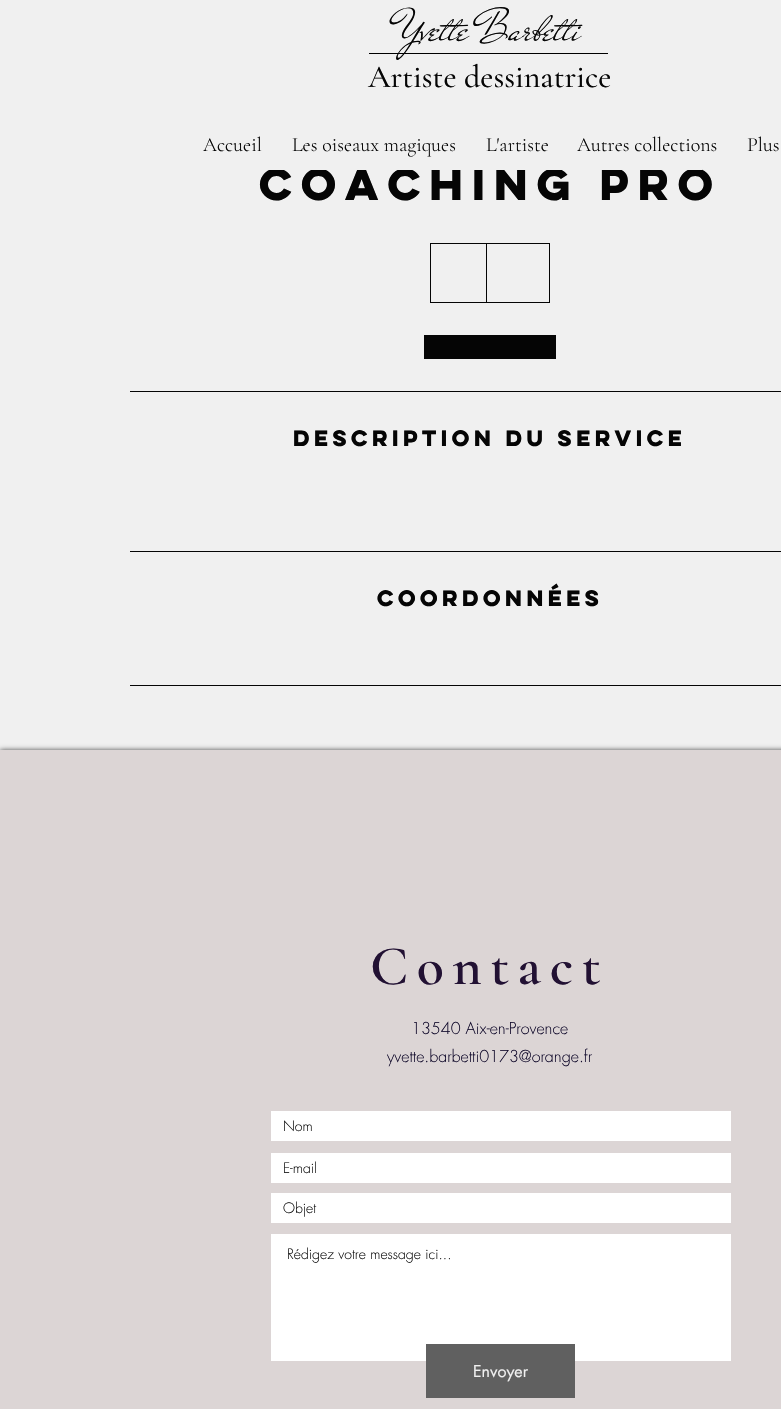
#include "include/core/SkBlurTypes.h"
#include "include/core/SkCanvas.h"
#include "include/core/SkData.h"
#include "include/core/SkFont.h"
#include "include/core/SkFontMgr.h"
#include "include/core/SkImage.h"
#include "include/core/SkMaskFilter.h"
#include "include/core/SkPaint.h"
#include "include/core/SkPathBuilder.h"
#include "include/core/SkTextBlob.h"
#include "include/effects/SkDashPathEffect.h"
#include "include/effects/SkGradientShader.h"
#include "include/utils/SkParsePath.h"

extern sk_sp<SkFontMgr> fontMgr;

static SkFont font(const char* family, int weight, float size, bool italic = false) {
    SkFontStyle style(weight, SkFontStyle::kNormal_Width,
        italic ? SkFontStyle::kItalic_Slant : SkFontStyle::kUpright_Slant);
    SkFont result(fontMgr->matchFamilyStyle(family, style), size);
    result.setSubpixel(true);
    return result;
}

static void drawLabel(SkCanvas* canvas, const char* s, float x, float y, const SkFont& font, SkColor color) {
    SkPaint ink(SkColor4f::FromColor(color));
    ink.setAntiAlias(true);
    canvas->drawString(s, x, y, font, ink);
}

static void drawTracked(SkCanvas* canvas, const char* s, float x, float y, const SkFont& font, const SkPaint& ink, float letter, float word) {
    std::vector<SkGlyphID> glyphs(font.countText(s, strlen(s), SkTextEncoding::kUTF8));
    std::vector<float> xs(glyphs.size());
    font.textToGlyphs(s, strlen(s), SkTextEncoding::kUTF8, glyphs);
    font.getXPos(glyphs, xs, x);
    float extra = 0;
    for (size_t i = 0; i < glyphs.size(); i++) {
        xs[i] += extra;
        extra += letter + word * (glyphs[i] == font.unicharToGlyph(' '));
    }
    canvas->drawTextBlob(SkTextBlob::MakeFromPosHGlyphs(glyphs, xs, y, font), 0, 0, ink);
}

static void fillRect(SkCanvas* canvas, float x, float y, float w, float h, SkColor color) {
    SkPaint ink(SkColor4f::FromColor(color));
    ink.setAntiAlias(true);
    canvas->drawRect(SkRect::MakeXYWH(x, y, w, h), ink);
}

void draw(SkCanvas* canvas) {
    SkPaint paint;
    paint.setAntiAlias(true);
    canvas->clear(0xFFF0F0F0);
    SkFont font1 = font("Mr De Haviland", 400, 45);
    drawLabel(canvas, "Yvette Barbetti", 399, 40, font1, 0xFF050505);
    SkFont font2 = font("Cormorant Garamond", 500, 32);
    drawLabel(canvas, "Artiste dessinatrice", 368, 87, font2, 0xFF050505);
    fillRect(canvas, 369, 53, 239, 1, 0xFF000000);
    SkFont font3 = font("Cormorant Garamond", 300, 20);
    drawLabel(canvas, "Accueil", 203, 151, font3, 0xFF050505);
    drawLabel(canvas, "Les oiseaux magiques", 292, 151, font3, 0xFF050505);
    drawLabel(canvas, "L'artiste", 486, 151, font3, 0xFF050505);
    drawLabel(canvas, "Autres collections", 577, 151, font3, 0xFF050505);
    drawLabel(canvas, "Plus", 747, 151, font3, 0xFF050505);
    SkFont font4 = font("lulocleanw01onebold", 700, 40);
    drawLabel(canvas, "Coaching pro", 259, 200, font4, 0xFF050505);
    fillRect(canvas, 268, 168, 434, 2, 0xFFF0F0F0);
    paint.setStroke(true);
    paint.setStrokeWidth(1);
    paint.setColor(0xFF050505);
    canvas->drawRect(SkRect::MakeXYWH(430.5f, 243.5f, 119, 59), paint);
    fillRect(canvas, 486, 244, 1, 58, 0xFF050505);
    fillRect(canvas, 424, 335, 132, 24, 0xFF050505);
    fillRect(canvas, 130, 391, 651, 1, 0xFF050505);
    SkFont font5 = font("lulocleanw01onebold", 700, 20);
    drawLabel(canvas, "Description du service", 293, 446, font5, 0xFF050505);
    fillRect(canvas, 130, 551, 651, 1, 0xFF050505);
    drawLabel(canvas, "Coordonnées", 377, 606, font5, 0xFF050505);
    fillRect(canvas, 130, 685, 651, 1, 0xFF050505);
    paint.setStroke(false);
    paint.setColor(0xB3000000);
    paint.setMaskFilter(SkMaskFilter::MakeBlur(kNormal_SkBlurStyle, 2.5f));
    canvas->drawRect(SkRect::MakeXYWH(0, 750, 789, 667), paint);
    paint.setMaskFilter(nullptr);
    fillRect(canvas, 0, 750, 781, 659, 0xFFDCD5D5);
    SkFont font6 = font("Cormorant Garamond", 600, 56);
    paint.setColor(0xFF221133);
    drawTracked(canvas, "Contact", 370, 984, font6, paint, 8.5f, 0);
    SkFont font7 = font("futura", 300, 16);
    drawLabel(canvas, "13540 Aix-en-Provence", 411, 1034, font7, 0xFF110A2B);
    drawLabel(canvas, "yvette.barbetti0173@orange.fr", 387, 1062, font7, 0xFF110A2B);
    fillRect(canvas, 271, 1111, 460, 30, 0xFFFFFFFF);
    SkFont font8 = font("futura", 300, 14);
    drawLabel(canvas, "Nom", 283, 1131, font8, 0xFF0F0F0F);
    fillRect(canvas, 271, 1153, 460, 30, 0xFFFFFFFF);
    drawLabel(canvas, "E-mail", 283, 1173, font8, 0xFF0F0F0F);
    fillRect(canvas, 271, 1193, 460, 30, 0xFFFFFFFF);
    drawLabel(canvas, "Objet", 283, 1213, font8, 0xFF0F0F0F);
    fillRect(canvas, 271, 1234, 460, 127, 0xFFFFFFFF);
    drawLabel(canvas, "Rédigez votre message ici...", 287, 1259, font8, 0xFF0F0F0F);
    fillRect(canvas, 426, 1344, 149, 54, 0xFF606060);
    SkFont font9 = font("futura", 400, 16);
    drawLabel(canvas, "Envoyer", 473, 1377, font9, 0xFFF0F0F0);
}
